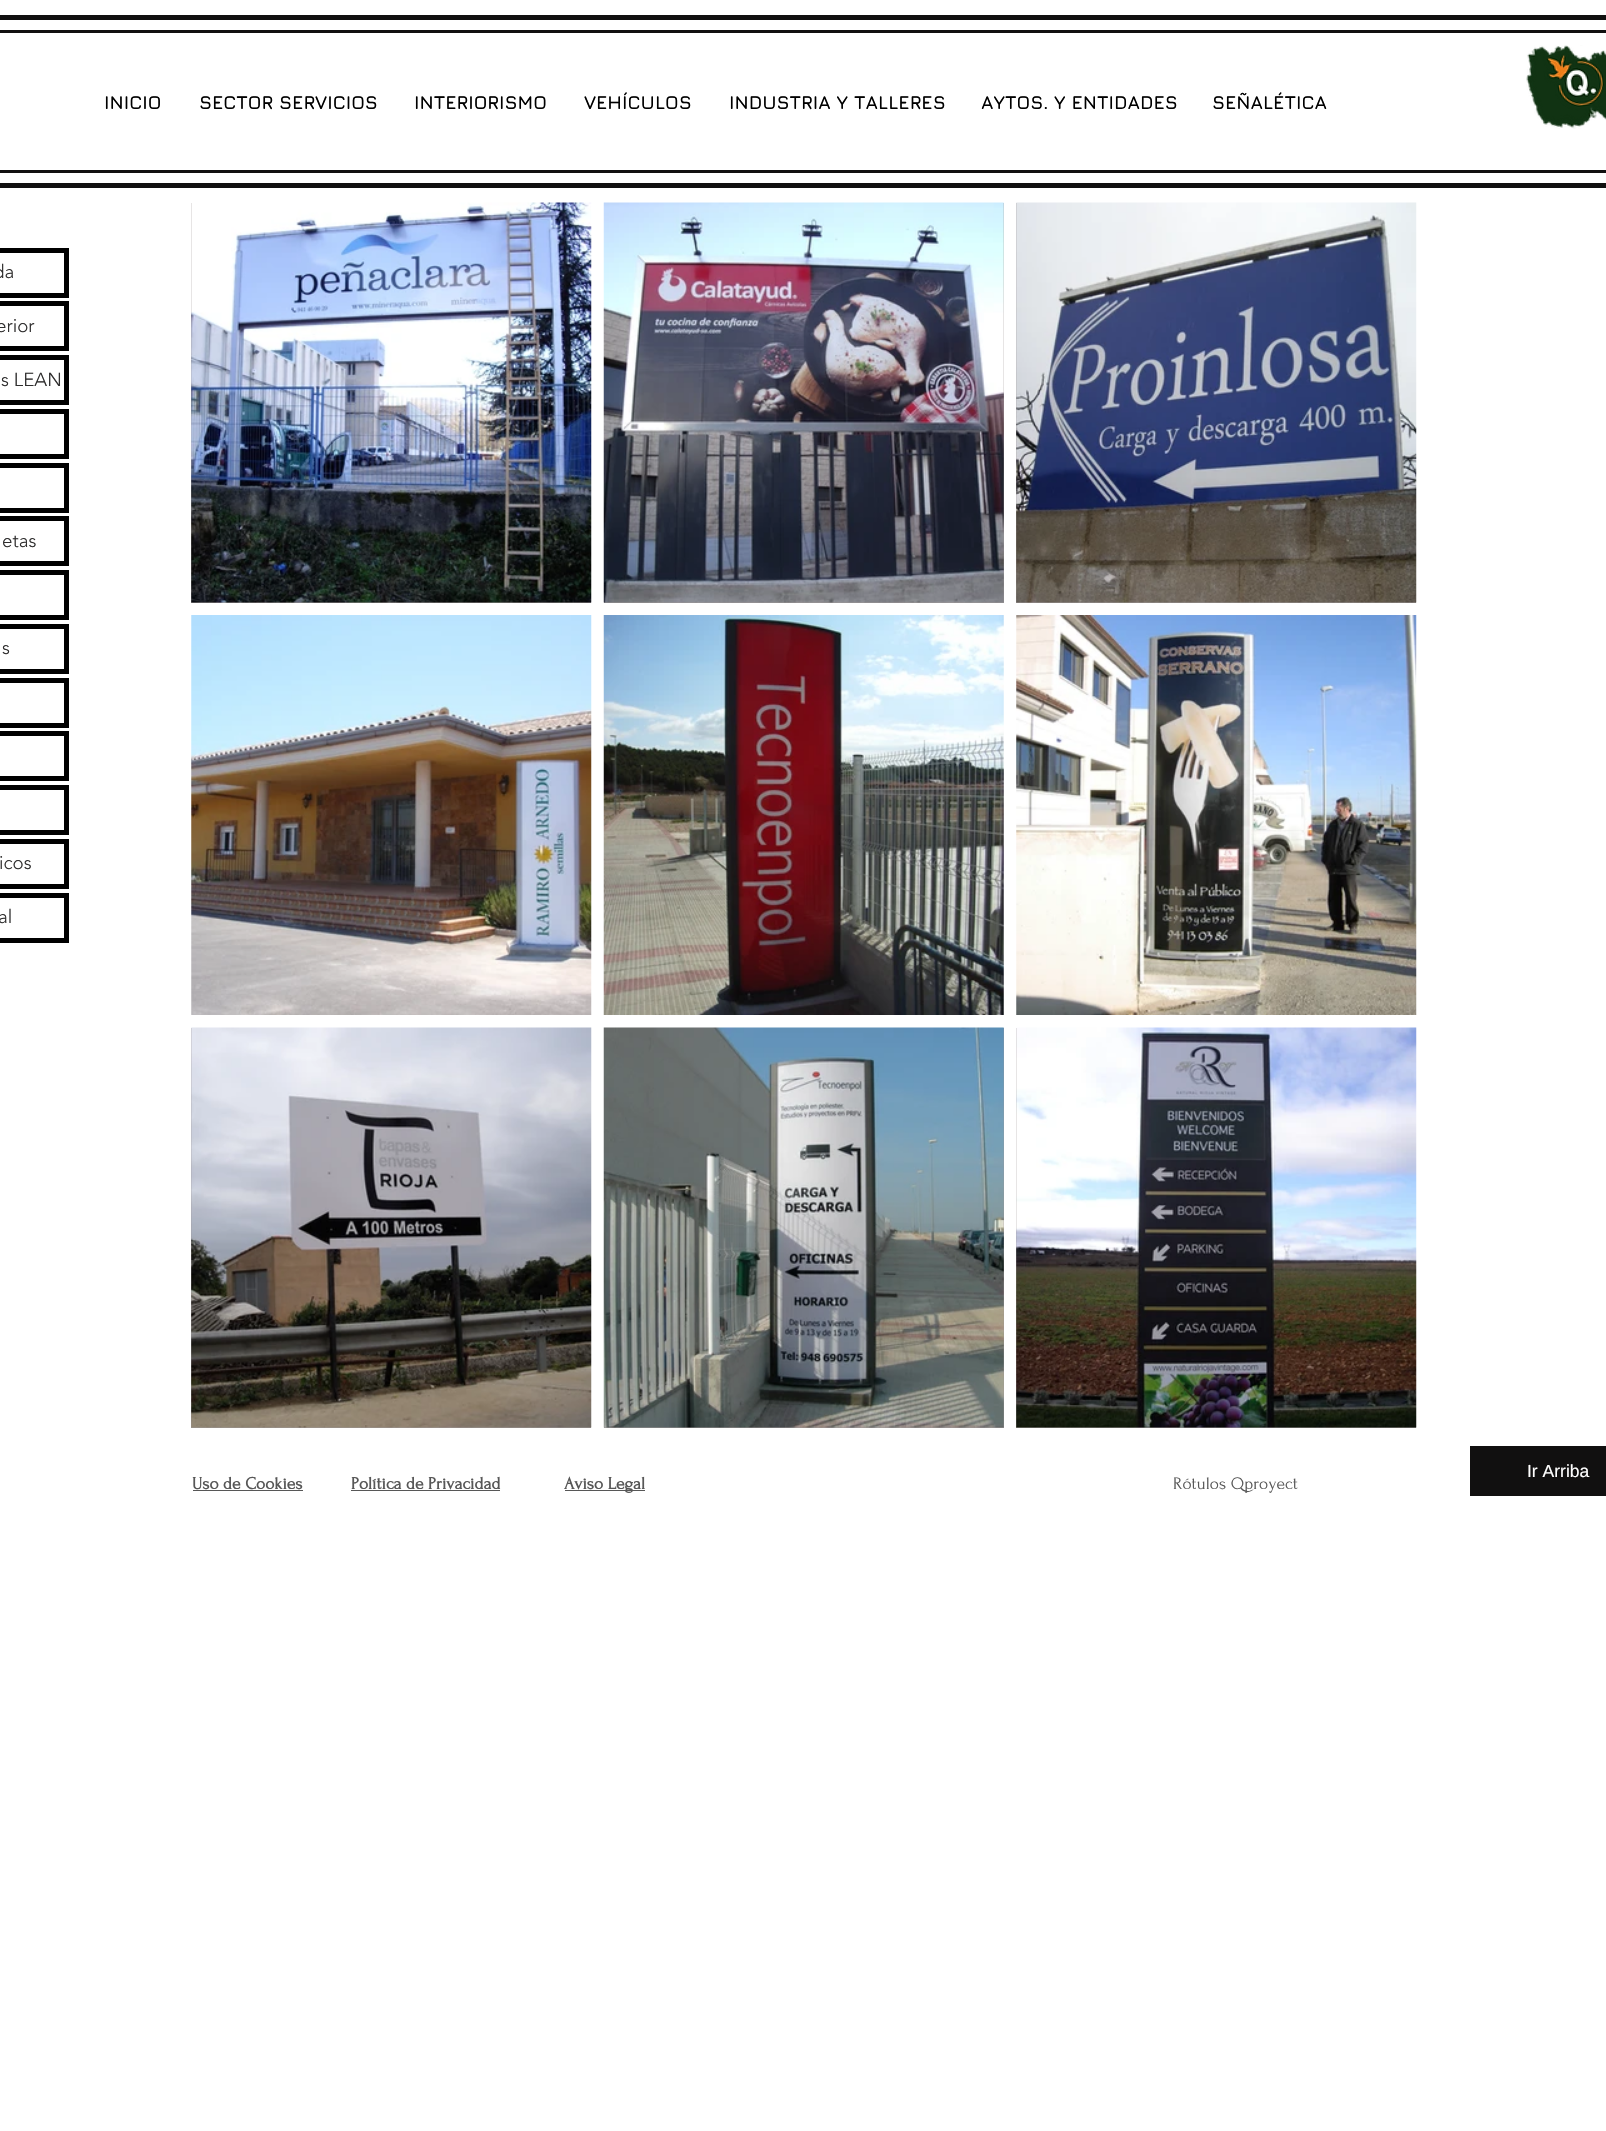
#include "include/core/SkBlurTypes.h"
#include "include/core/SkCanvas.h"
#include "include/core/SkData.h"
#include "include/core/SkFont.h"
#include "include/core/SkFontMgr.h"
#include "include/core/SkImage.h"
#include "include/core/SkMaskFilter.h"
#include "include/core/SkPaint.h"
#include "include/core/SkPathBuilder.h"
#include "include/core/SkTextBlob.h"
#include "include/effects/SkDashPathEffect.h"
#include "include/effects/SkGradientShader.h"
#include "include/utils/SkParsePath.h"

extern sk_sp<SkFontMgr> fontMgr;

static SkFont font(const char* family, int weight, float size, bool italic = false) {
    SkFontStyle style(weight, SkFontStyle::kNormal_Width,
        italic ? SkFontStyle::kItalic_Slant : SkFontStyle::kUpright_Slant);
    SkFont result(fontMgr->matchFamilyStyle(family, style), size);
    result.setSubpixel(true);
    return result;
}

static void drawLabel(SkCanvas* canvas, const char* s, float x, float y, const SkFont& font, SkColor color) {
    SkPaint ink(SkColor4f::FromColor(color));
    ink.setAntiAlias(true);
    canvas->drawString(s, x, y, font, ink);
}

static void fillRect(SkCanvas* canvas, float x, float y, float w, float h, SkColor color) {
    SkPaint ink(SkColor4f::FromColor(color));
    ink.setAntiAlias(true);
    canvas->drawRect(SkRect::MakeXYWH(x, y, w, h), ink);
}

static void drawPhoto(SkCanvas* canvas, const char* path, float x, float y, float w, float h) {
    auto image = SkImages::DeferredFromEncodedData(SkData::MakeFromFileName(path));
    canvas->drawImageRect(image, SkRect::MakeXYWH(x, y, w, h), SkSamplingOptions());
}

void draw(SkCanvas* canvas) {
    SkPaint paint;
    paint.setAntiAlias(true);
    canvas->clear(0xFFFFFFFF);
    fillRect(canvas, 0, 15, 1606, 5, 0xFF111010);
    fillRect(canvas, 0, 183, 1606, 5, 0xFF111010);
    fillRect(canvas, 0, 30, 1606, 3, 0xFF111010);
    fillRect(canvas, 0, 170, 1606, 3, 0xFF111010);
    SkFont font1 = font("Jura", 700, 18.75f);
    drawLabel(canvas, "INICIO", 104, 109, font1, 0xFF000000);
    drawLabel(canvas, "SECTOR SERVICIOS", 199, 109, font1, 0xFF000000);
    drawLabel(canvas, "INTERIORISMO", 414, 109, font1, 0xFF000000);
    drawLabel(canvas, "VEHÍCULOS", 584, 109, font1, 0xFF000000);
    drawLabel(canvas, "INDUSTRIA Y TALLERES", 729, 109, font1, 0xFF000000);
    drawLabel(canvas, "AYTOS. Y ENTIDADES", 981, 109, font1, 0xFF000000);
    drawLabel(canvas, "SEÑALÉTICA", 1212, 109, font1, 0xFF000000);
    drawPhoto(canvas, "assets/img1.png", 1526, 45, 80, 84);
    paint.setStroke(true);
    paint.setStrokeWidth(5);
    paint.setColor(0xFF000000);
    canvas->drawRect(SkRect::MakeXYWH(-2.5f, 250.5f, 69, 45), paint);
    SkFont font2 = font("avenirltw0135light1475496", 300, 18.75f);
    drawLabel(canvas, "da", -7, 278, font2, 0xFF2F2E2E);
    fillRect(canvas, 191, 203, 400, 400, 0xFF9C9696);
    drawPhoto(canvas, "assets/img2.png", 191, 202, 401, 401);
    fillRect(canvas, 604, 203, 400, 400, 0xFF9C9696);
    drawPhoto(canvas, "assets/img3.png", 603, 202, 401, 401);
    fillRect(canvas, 1016, 203, 400, 400, 0xFF9C9696);
    drawPhoto(canvas, "assets/img4.png", 1016, 202, 401, 401);
    drawPhoto(canvas, "assets/img5.png", 191, 615, 401, 400);
    drawPhoto(canvas, "assets/img6.png", 603, 615, 401, 400);
    drawPhoto(canvas, "assets/img7.png", 1016, 615, 401, 400);
    fillRect(canvas, 191, 1028, 400, 400, 0xFF9C9696);
    drawPhoto(canvas, "assets/img8.png", 191, 1027, 401, 401);
    fillRect(canvas, 604, 1028, 400, 400, 0xFF9C9696);
    drawPhoto(canvas, "assets/img9.png", 603, 1027, 401, 401);
    fillRect(canvas, 1016, 1028, 400, 400, 0xFF9C9696);
    drawPhoto(canvas, "assets/img10.png", 1016, 1027, 401, 401);
    canvas->drawRect(SkRect::MakeXYWH(-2.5f, 303.5f, 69, 45), paint);
    drawLabel(canvas, "erior", -4, 332, font2, 0xFF2F2E2E);
    canvas->drawRect(SkRect::MakeXYWH(-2.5f, 357.5f, 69, 45), paint);
    drawLabel(canvas, "s LEAN", 1, 386, font2, 0xFF2F2E2E);
    canvas->drawRect(SkRect::MakeXYWH(-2.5f, 411.5f, 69, 45), paint);
    canvas->drawRect(SkRect::MakeXYWH(-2.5f, 465.5f, 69, 45), paint);
    canvas->drawRect(SkRect::MakeXYWH(-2.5f, 518.5f, 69, 45), paint);
    drawLabel(canvas, "etas", 2, 547, font2, 0xFF2F2E2E);
    canvas->drawRect(SkRect::MakeXYWH(-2.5f, 572.5f, 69, 45), paint);
    canvas->drawRect(SkRect::MakeXYWH(-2.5f, 626.5f, 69, 45), paint);
    drawLabel(canvas, "s", 2, 654, font2, 0xFF2F2E2E);
    canvas->drawRect(SkRect::MakeXYWH(-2.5f, 680.5f, 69, 45), paint);
    canvas->drawRect(SkRect::MakeXYWH(-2.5f, 733.5f, 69, 45), paint);
    canvas->drawRect(SkRect::MakeXYWH(-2.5f, 787.5f, 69, 45), paint);
    canvas->drawRect(SkRect::MakeXYWH(-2.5f, 841.5f, 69, 45), paint);
    drawLabel(canvas, "icos", -1, 869, font2, 0xFF2F2E2E);
    canvas->drawRect(SkRect::MakeXYWH(-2.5f, 895.5f, 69, 45), paint);
    drawLabel(canvas, "al", -2, 923, font2, 0xFF2F2E2E);
    fillRect(canvas, 1470, 1446, 136, 50, 0xFF111010);
    SkFont font3 = font("Liberation Sans", 400, 17.5f);
    drawLabel(canvas, "Ir Arriba", 1527, 1477, font3, 0xFFFFFFFF);
    SkFont font4 = font("Forum", 700, 17.5f);
    drawLabel(canvas, "Uso de Cookies", 192, 1489, font4, 0xFF575757);
    fillRect(canvas, 193, 1490, 110, 1, 0xFF575757);
    drawLabel(canvas, "Política de Privacidad", 351, 1489, font4, 0xFF575757);
    fillRect(canvas, 351, 1490, 149, 1, 0xFF575757);
    fillRect(canvas, 565, 1490, 80, 1, 0xFF575757);
    drawLabel(canvas, "Aviso Legal", 564, 1489, font4, 0xFF575757);
    SkFont font5 = font("Forum", 400, 17.5f);
    drawLabel(canvas, "Rótulos Qproyect", 1173, 1489, font5, 0xFF575757);
}
